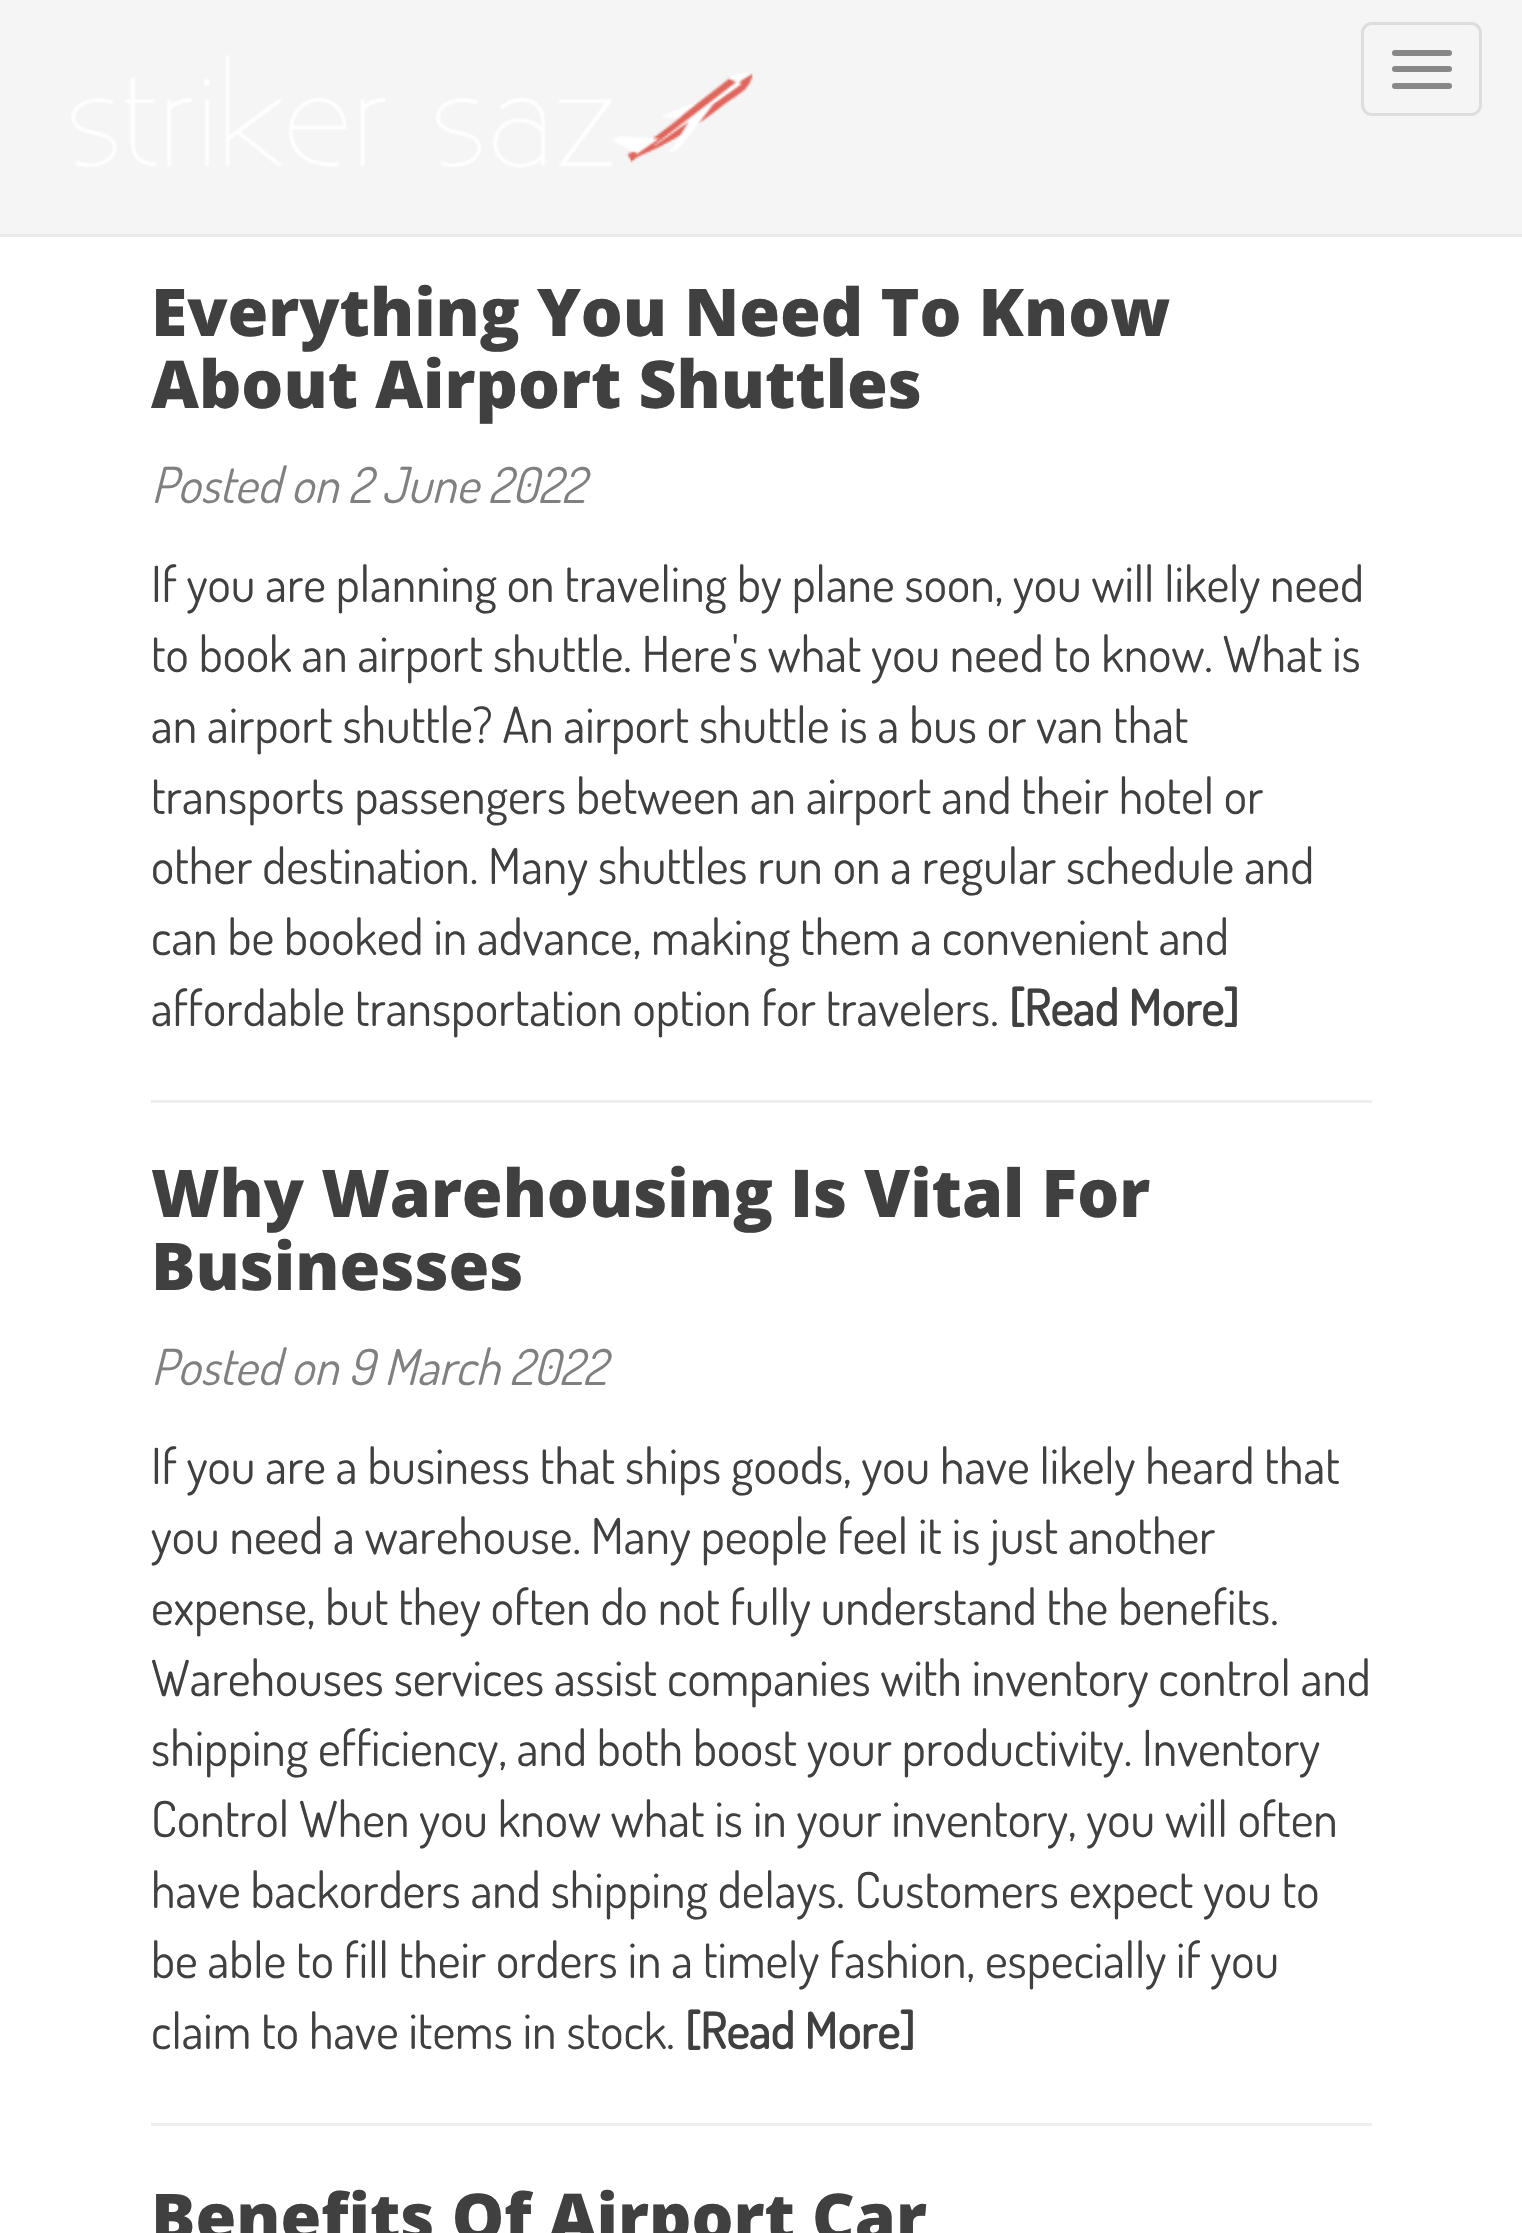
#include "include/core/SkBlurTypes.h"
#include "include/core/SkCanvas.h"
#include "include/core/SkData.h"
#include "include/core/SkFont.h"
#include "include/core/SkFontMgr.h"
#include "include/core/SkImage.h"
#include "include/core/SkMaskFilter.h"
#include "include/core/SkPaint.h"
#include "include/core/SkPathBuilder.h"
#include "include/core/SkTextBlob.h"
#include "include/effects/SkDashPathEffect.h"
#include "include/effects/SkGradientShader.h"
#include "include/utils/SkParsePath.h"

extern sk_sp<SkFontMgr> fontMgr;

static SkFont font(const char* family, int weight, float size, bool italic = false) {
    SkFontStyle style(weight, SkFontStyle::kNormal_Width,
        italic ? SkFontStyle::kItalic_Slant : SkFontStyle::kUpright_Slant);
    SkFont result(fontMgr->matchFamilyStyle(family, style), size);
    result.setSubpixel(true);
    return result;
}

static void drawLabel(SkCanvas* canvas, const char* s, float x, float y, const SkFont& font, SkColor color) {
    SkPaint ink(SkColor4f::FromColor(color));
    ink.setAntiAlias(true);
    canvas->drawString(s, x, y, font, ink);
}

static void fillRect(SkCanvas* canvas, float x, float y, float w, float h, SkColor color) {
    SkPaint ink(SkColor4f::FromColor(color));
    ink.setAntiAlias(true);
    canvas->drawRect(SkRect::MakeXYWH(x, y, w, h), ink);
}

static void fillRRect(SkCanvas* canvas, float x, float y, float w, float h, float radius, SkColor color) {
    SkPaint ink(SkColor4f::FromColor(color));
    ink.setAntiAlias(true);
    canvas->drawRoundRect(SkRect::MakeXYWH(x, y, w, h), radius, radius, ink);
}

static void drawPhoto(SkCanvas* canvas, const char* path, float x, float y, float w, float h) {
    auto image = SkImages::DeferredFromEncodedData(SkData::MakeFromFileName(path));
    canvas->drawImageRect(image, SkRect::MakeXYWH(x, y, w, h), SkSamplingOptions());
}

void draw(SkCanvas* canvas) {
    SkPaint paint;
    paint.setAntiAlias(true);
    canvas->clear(0xFFFFFFFF);
    fillRect(canvas, 0, 0, 1522, 234, 0xFFF5F5F5);
    fillRect(canvas, 0, 234, 1522, 3, 0xFFEAEAEA);
    drawPhoto(canvas, "assets/img1.png", 71, 55, 682, 113);
    paint.setStroke(true);
    paint.setStrokeWidth(3);
    paint.setColor(0xFFDDDDDD);
    canvas->drawRoundRect(SkRect::MakeXYWH(1362.5f, 23.5f, 118, 91), 9.5f, 9.5f, paint);
    fillRRect(canvas, 1392, 50, 60, 6, 3, 0xFF888888);
    fillRRect(canvas, 1392, 66, 60, 6, 3, 0xFF888888);
    fillRRect(canvas, 1392, 83, 60, 6, 3, 0xFF888888);
    fillRect(canvas, 151, 1100, 1221, 3, 0xFFEEEEEE);
    SkFont font1 = font("Open Sans", 800, 66);
    drawLabel(canvas, "Everything You Need To Know", 151, 336, font1, 0xFF404040);
    drawLabel(canvas, "About Airport Shuttles", 151, 408, font1, 0xFF404040);
    SkFont font2 = font("Dosis", 400, 49.5f, true);
    drawLabel(canvas, "Posted on 2 June 2022", 151, 503, font2, 0xFF808080);
    SkFont font3 = font("Dosis", 400, 49.5f);
    drawLabel(canvas, "If you are planning on traveling by plane soon, you will likely need", 151, 602, font3, 0xFF404040);
    drawLabel(canvas, "to book an airport shuttle. Here's what you need to know. What is", 151, 672, font3, 0xFF404040);
    drawLabel(canvas, "an airport shuttle? An airport shuttle is a bus or van that", 151, 743, font3, 0xFF404040);
    drawLabel(canvas, "transports passengers between an airport and their hotel or", 151, 814, font3, 0xFF404040);
    drawLabel(canvas, "other destination. Many shuttles run on a regular schedule and", 151, 884, font3, 0xFF404040);
    drawLabel(canvas, "can be booked in advance, making them a convenient and", 151, 955, font3, 0xFF404040);
    drawLabel(canvas, "affordable transportation option for travelers.", 151, 1026, font3, 0xFF404040);
    SkFont font4 = font("Dosis", 700, 49.5f);
    drawLabel(canvas, "[Read More]", 1009, 1026, font4, 0xFF404040);
    fillRect(canvas, 151, 2123, 1221, 3, 0xFFEEEEEE);
    drawLabel(canvas, "Why Warehousing Is Vital For", 151, 1217, font1, 0xFF404040);
    drawLabel(canvas, "Businesses", 151, 1290, font1, 0xFF404040);
    drawLabel(canvas, "Posted on 9 March 2022", 151, 1385, font2, 0xFF808080);
    drawLabel(canvas, "If you are a business that ships goods, you have likely heard that", 151, 1484, font3, 0xFF404040);
    drawLabel(canvas, "you need a warehouse. Many people feel it is just another", 151, 1554, font3, 0xFF404040);
    drawLabel(canvas, "expense, but they often do not fully understand the benefits.", 151, 1625, font3, 0xFF404040);
    drawLabel(canvas, "Warehouses services assist companies with inventory control and", 151, 1696, font3, 0xFF404040);
    drawLabel(canvas, "shipping efficiency, and both boost your productivity. Inventory", 151, 1766, font3, 0xFF404040);
    drawLabel(canvas, "Control When you know what is in your inventory, you will often", 151, 1837, font3, 0xFF404040);
    drawLabel(canvas, "have backorders and shipping delays. Customers expect you to", 151, 1908, font3, 0xFF404040);
    drawLabel(canvas, "be able to fill their orders in a timely fashion, especially if you", 151, 1978, font3, 0xFF404040);
    drawLabel(canvas, "claim to have items in stock.", 151, 2049, font3, 0xFF404040);
    drawLabel(canvas, "[Read More]", 685, 2049, font4, 0xFF404040);
    drawLabel(canvas, "Benefits Of Airport Car", 151, 2241, font1, 0xFF404040);
}
